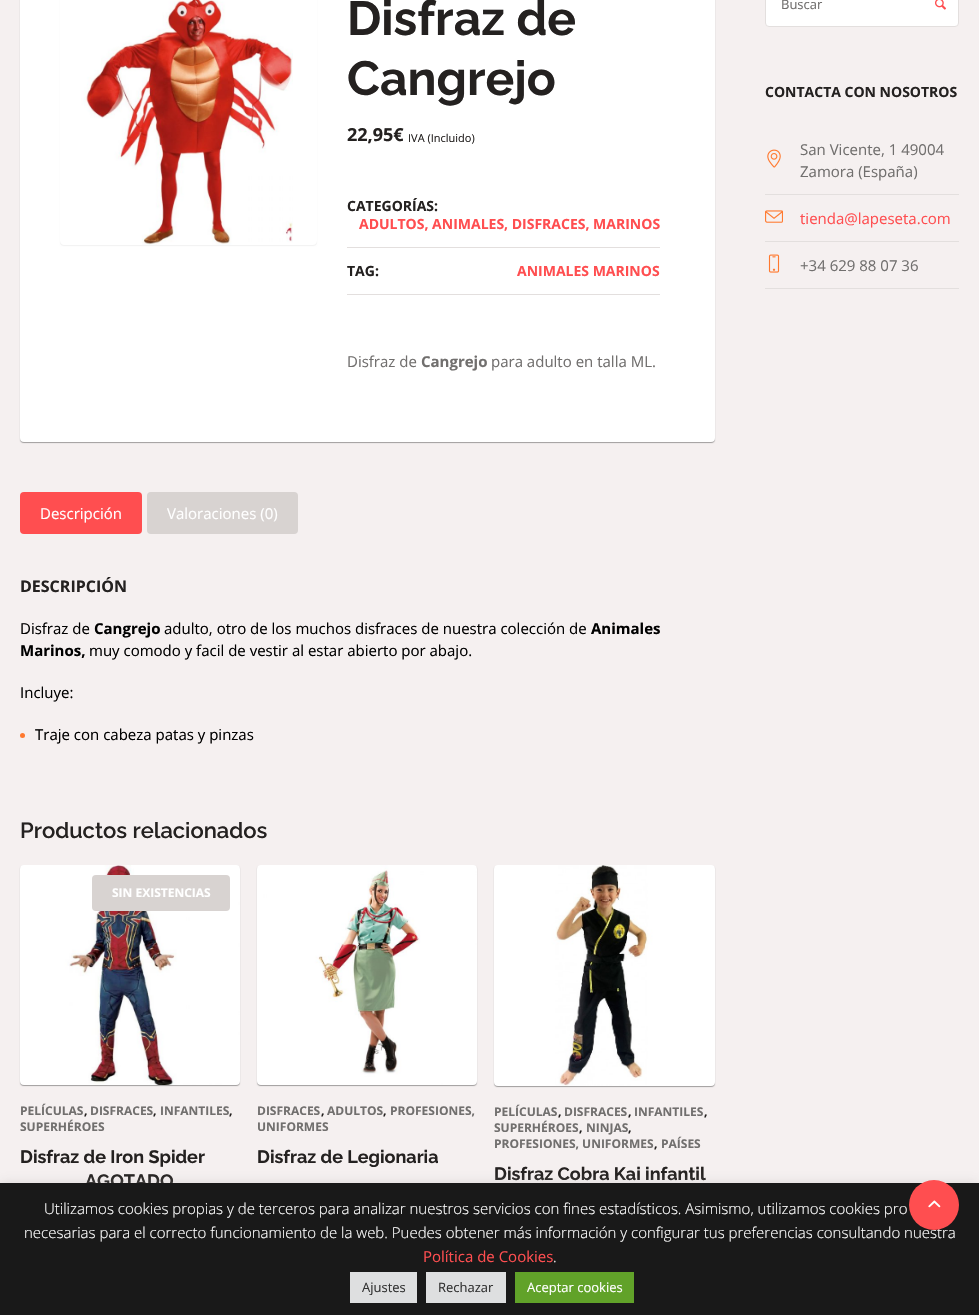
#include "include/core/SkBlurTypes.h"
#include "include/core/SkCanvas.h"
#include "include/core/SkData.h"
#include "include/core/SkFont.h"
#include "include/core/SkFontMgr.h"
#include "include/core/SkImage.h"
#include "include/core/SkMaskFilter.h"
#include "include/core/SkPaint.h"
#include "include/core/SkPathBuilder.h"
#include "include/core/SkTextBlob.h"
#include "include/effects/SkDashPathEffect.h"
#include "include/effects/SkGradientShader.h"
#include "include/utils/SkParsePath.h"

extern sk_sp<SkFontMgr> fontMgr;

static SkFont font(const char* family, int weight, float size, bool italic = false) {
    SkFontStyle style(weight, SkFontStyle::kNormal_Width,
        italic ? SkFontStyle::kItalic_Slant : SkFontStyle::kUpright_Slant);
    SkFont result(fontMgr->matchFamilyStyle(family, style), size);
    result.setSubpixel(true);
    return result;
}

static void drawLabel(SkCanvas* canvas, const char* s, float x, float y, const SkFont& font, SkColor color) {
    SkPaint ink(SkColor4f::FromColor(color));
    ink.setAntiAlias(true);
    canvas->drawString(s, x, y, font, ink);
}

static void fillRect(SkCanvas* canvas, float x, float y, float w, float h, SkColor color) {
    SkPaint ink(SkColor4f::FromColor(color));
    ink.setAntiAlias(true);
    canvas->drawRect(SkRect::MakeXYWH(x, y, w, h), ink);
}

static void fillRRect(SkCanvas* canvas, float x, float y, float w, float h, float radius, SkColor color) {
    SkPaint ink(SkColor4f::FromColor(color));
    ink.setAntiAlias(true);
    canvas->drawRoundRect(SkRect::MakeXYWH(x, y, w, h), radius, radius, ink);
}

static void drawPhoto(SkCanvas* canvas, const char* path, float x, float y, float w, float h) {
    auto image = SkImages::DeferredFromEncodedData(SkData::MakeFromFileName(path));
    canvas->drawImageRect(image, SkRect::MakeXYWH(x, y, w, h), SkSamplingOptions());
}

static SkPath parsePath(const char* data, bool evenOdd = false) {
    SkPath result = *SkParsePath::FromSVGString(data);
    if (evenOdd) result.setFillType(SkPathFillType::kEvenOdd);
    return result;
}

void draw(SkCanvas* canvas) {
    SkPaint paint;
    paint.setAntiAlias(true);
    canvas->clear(0xFFF5F0F0);
    paint.setColor(0x59000000);
    paint.setMaskFilter(SkMaskFilter::MakeBlur(kNormal_SkBlurStyle, 0.5f));
    canvas->drawRoundRect(SkRect::MakeXYWH(20, -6, 695, 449), 4, 4, paint);
    paint.setMaskFilter(nullptr);
    fillRRect(canvas, 20, -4, 695, 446, 4, 0xFFFFFFFF);
    canvas->save();
    canvas->clipPath(parsePath("M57 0H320V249H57ZM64-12H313C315-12 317-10 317-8V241C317 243 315 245 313 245H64C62 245 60 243 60 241V-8C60-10 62-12 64-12Z", true), true);
    paint.setColor(0x0D000000);
    paint.setMaskFilter(SkMaskFilter::MakeBlur(kNormal_SkBlurStyle, 0.5f));
    canvas->drawRoundRect(SkRect::MakeXYWH(60, -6, 257, 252), 4, 4, paint);
    paint.setMaskFilter(nullptr);
    canvas->restore();
    drawPhoto(canvas, "assets/img1.png", 81, 0, 212, 245);
    SkFont font1 = font("Raleway", 700, 48);
    drawLabel(canvas, "Disfraz de", 347, 35, font1, 0xFF242120);
    drawLabel(canvas, "Cangrejo", 347, 95, font1, 0xFF242120);
    SkFont font2 = font("Open Sans", 700, 18);
    drawLabel(canvas, "22,95€", 347, 141, font2, 0xFF242120);
    SkFont font3 = font("Open Sans", 400, 11);
    drawLabel(canvas, "IVA (Incluido)", 408, 142, font3, 0xFF242120);
    fillRect(canvas, 347, 247, 313, 1, 0xFFE3DFDE);
    SkFont font4 = font("Open Sans", 700, 14);
    drawLabel(canvas, "CATEGORÍAS:", 347, 211, font4, 0xFF242120);
    drawLabel(canvas, "ADULTOS, ANIMALES, DISFRACES, MARINOS", 359, 229, font4, 0xFFFF4E50);
    fillRect(canvas, 347, 294, 313, 1, 0xFFE3DFDE);
    drawLabel(canvas, "TAG:", 347, 276, font4, 0xFF242120);
    drawLabel(canvas, "ANIMALES MARINOS", 517, 276, font4, 0xFFFF4E50);
    SkFont font5 = font("Open Sans", 400, 15);
    drawLabel(canvas, "Disfraz de", 347, 367, font5, 0xFF716F6E);
    SkFont font6 = font("Open Sans", 700, 15);
    drawLabel(canvas, "Cangrejo", 421, 367, font6, 0xFF716F6E);
    drawLabel(canvas, "para adulto en talla ML.", 491, 367, font5, 0xFF716F6E);
    fillRRect(canvas, 20, 492, 122, 42, 4, 0xFFFF4E50);
    drawLabel(canvas, "Descripción", 40, 519, font5, 0xFFFFFFFF);
    fillRRect(canvas, 147, 492, 151, 42, 4, 0xFFD8D3D1);
    drawLabel(canvas, "Valoraciones (0)", 167, 519, font5, 0xFFFFFFFF);
    SkFont font7 = font("Open Sans", 700, 16);
    drawLabel(canvas, "DESCRIPCIÓN", 20, 592, font7, 0xFF242120);
    drawLabel(canvas, "Disfraz de", 20, 634, font5, 0xFF000000);
    drawLabel(canvas, "Cangrejo", 94, 634, font6, 0xFF000000);
    drawLabel(canvas, "adulto, otro de los muchos disfraces de nuestra colección de", 164, 634, font5, 0xFF000000);
    drawLabel(canvas, "Animales", 591, 634, font6, 0xFF000000);
    drawLabel(canvas, "Marinos,", 20, 656, font6, 0xFF000000);
    drawLabel(canvas, "muy comodo y facil de vestir al estar abierto por abajo.", 89, 656, font5, 0xFF000000);
    drawLabel(canvas, "Incluye:", 20, 698, font5, 0xFF000000);
    paint.setColor(0xFFFF792F);
    canvas->drawCircle(22.5f, 735.5f, 2.5f, paint);
    drawLabel(canvas, "Traje con cabeza patas y pinzas", 35, 740, font5, 0xFF000000);
    SkFont font8 = font("Raleway", 600, 22);
    drawLabel(canvas, "Productos relacionados", 20, 838, font8, 0xFF242120);
    paint.setColor(0x59000000);
    paint.setMaskFilter(SkMaskFilter::MakeBlur(kNormal_SkBlurStyle, 0.5f));
    canvas->drawRoundRect(SkRect::MakeXYWH(20, 866, 220, 220), 4, 4, paint);
    paint.setMaskFilter(nullptr);
    drawPhoto(canvas, "assets/img2.png", 20, 865, 220, 220);
    fillRRect(canvas, 92, 875, 138, 36, 4, 0xFFD8D3D1);
    SkFont font9 = font("Open Sans", 700, 12);
    drawLabel(canvas, "SIN EXISTENCIAS", 112, 897, font9, 0xFFFFFFFF);
    drawLabel(canvas, "PELÍCULAS", 20, 1115, font9, 0xFF716F6E);
    drawLabel(canvas, ",", 84, 1115, font9, 0xFF242120);
    drawLabel(canvas, "DISFRACES", 90, 1115, font9, 0xFF716F6E);
    drawLabel(canvas, ",", 153, 1115, font9, 0xFF242120);
    drawLabel(canvas, "INFANTILES", 160, 1115, font9, 0xFF716F6E);
    drawLabel(canvas, ",", 229, 1115, font9, 0xFF242120);
    drawLabel(canvas, "SUPERHÉROES", 20, 1131, font9, 0xFF716F6E);
    SkFont font10 = font("Raleway", 700, 18);
    drawLabel(canvas, "Disfraz de Iron Spider", 20, 1163, font10, 0xFF242120);
    drawLabel(canvas, "AGOTADO", 85, 1187, font10, 0xFF242120);
    paint.setMaskFilter(SkMaskFilter::MakeBlur(kNormal_SkBlurStyle, 0.5f));
    canvas->drawRoundRect(SkRect::MakeXYWH(257, 866, 220, 220), 4, 4, paint);
    paint.setMaskFilter(nullptr);
    drawPhoto(canvas, "assets/img3.png", 257, 865, 220, 220);
    drawLabel(canvas, "DISFRACES", 257, 1115, font9, 0xFF716F6E);
    drawLabel(canvas, ",", 321, 1115, font9, 0xFF242120);
    drawLabel(canvas, "ADULTOS", 327, 1115, font9, 0xFF716F6E);
    drawLabel(canvas, ",", 383, 1115, font9, 0xFF242120);
    drawLabel(canvas, "PROFESIONES,", 390, 1115, font9, 0xFF716F6E);
    drawLabel(canvas, "UNIFORMES", 257, 1131, font9, 0xFF716F6E);
    drawLabel(canvas, "Disfraz de Legionaria", 257, 1163, font10, 0xFF242120);
    paint.setMaskFilter(SkMaskFilter::MakeBlur(kNormal_SkBlurStyle, 0.5f));
    canvas->drawRoundRect(SkRect::MakeXYWH(494, 866, 221, 221), 4, 4, paint);
    paint.setMaskFilter(nullptr);
    drawPhoto(canvas, "assets/img4.png", 494, 865, 221, 221);
    drawLabel(canvas, "PELÍCULAS", 494, 1116, font9, 0xFF716F6E);
    drawLabel(canvas, ",", 558, 1116, font9, 0xFF242120);
    drawLabel(canvas, "DISFRACES", 564, 1116, font9, 0xFF716F6E);
    drawLabel(canvas, ",", 628, 1116, font9, 0xFF242120);
    drawLabel(canvas, "INFANTILES", 634, 1116, font9, 0xFF716F6E);
    drawLabel(canvas, ",", 704, 1116, font9, 0xFF242120);
    drawLabel(canvas, "SUPERHÉROES", 494, 1132, font9, 0xFF716F6E);
    drawLabel(canvas, ",", 579, 1132, font9, 0xFF242120);
    drawLabel(canvas, "NINJAS", 586, 1132, font9, 0xFF716F6E);
    drawLabel(canvas, ",", 628, 1132, font9, 0xFF242120);
    drawLabel(canvas, "PROFESIONES, UNIFORMES", 494, 1148, font9, 0xFF716F6E);
    drawLabel(canvas, ",", 654, 1148, font9, 0xFF242120);
    drawLabel(canvas, "PAÍSES", 661, 1148, font9, 0xFF716F6E);
    drawLabel(canvas, "Disfraz Cobra Kai infantil", 494, 1180, font10, 0xFF242120);
    paint.setColor(0xFFFFFFFF);
    canvas->drawRoundRect(SkRect::MakeXYWH(765.5f, -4.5f, 193, 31), 3.5f, 3.5f, paint);
    paint.setStroke(true);
    paint.setStrokeWidth(1);
    paint.setColor(0xFFE3DFDE);
    canvas->drawRoundRect(SkRect::MakeXYWH(765.5f, -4.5f, 193, 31), 3.5f, 3.5f, paint);
    SkFont font11 = font("Open Sans", 400, 13);
    drawLabel(canvas, "Buscar", 781, 9, font11, 0xFF716F6E);
    drawPhoto(canvas, "assets/img5.png", 935, 0, 11, 10);
    drawLabel(canvas, "CONTACTA CON NOSOTROS", 765, 97, font4, 0xFF242120);
    drawPhoto(canvas, "assets/img6.png", 767, 149, 14, 19);
    drawLabel(canvas, "San Vicente, 1 49004", 800, 155, font5, 0xFF716F6E);
    drawLabel(canvas, "Zamora (España)", 800, 177, font5, 0xFF716F6E);
    fillRect(canvas, 765, 194, 194, 1, 0xFFE3DFDE);
    drawPhoto(canvas, "assets/img7.png", 765, 210, 18, 13);
    drawLabel(canvas, "tienda@lapeseta.com", 800, 224, font5, 0xFFFF4E50);
    fillRect(canvas, 765, 241, 194, 1, 0xFFE3DFDE);
    fillRect(canvas, 765, 288, 194, 1, 0xFFE3DFDE);
    drawPhoto(canvas, "assets/img8.png", 768, 254, 12, 19);
    drawLabel(canvas, "+34 629 88 07 36", 800, 271, font5, 0xFF716F6E);
    paint.setStroke(false);
    paint.setColor(0x4DACABAB);
    paint.setMaskFilter(SkMaskFilter::MakeBlur(kNormal_SkBlurStyle, 5));
    canvas->drawRect(SkRect::MakeXYWH(0, 1182, 979, 132), paint);
    paint.setMaskFilter(nullptr);
    fillRect(canvas, 0, 1183, 979, 132, 0xFF191919);
    SkFont font12 = font("Open Sans", 300, 15);
    drawLabel(canvas, "necesarias para el correcto funcionamiento de la web. Puedes obtener más información y configurar tus preferencias consultando nuestra", 24, 1238, font12, 0xFFFFFFFF);
    paint.setColor(0xFFFF4E50);
    canvas->drawCircle(934, 1205, 25, paint);
    drawPhoto(canvas, "assets/img9.png", 928, 1200, 13, 8);
    drawLabel(canvas, "Utilizamos cookies propias y de terceros para analizar nuestros servicios con fines estadísticos. Asimismo, utilizamos cookies pro", 44, 1214, font12, 0xFFFFFFFF);
    drawLabel(canvas, "Política de Cookies", 423, 1262, font5, 0xFFFF4E50);
    drawLabel(canvas, ".", 553, 1262, font12, 0xFFFFFFFF);
    fillRect(canvas, 350, 1272, 67, 31, 0xFFDEDFE0);
    drawLabel(canvas, "Ajustes", 362, 1292, font11, 0xFF333333);
    fillRect(canvas, 426, 1272, 80, 31, 0xFFDEDFE0);
    drawLabel(canvas, "Rechazar", 438, 1292, font11, 0xFF333333);
    fillRect(canvas, 515, 1272, 119, 31, 0xFF61A229);
    drawLabel(canvas, "Aceptar cookies", 527, 1292, font11, 0xFFFFFFFF);
}
